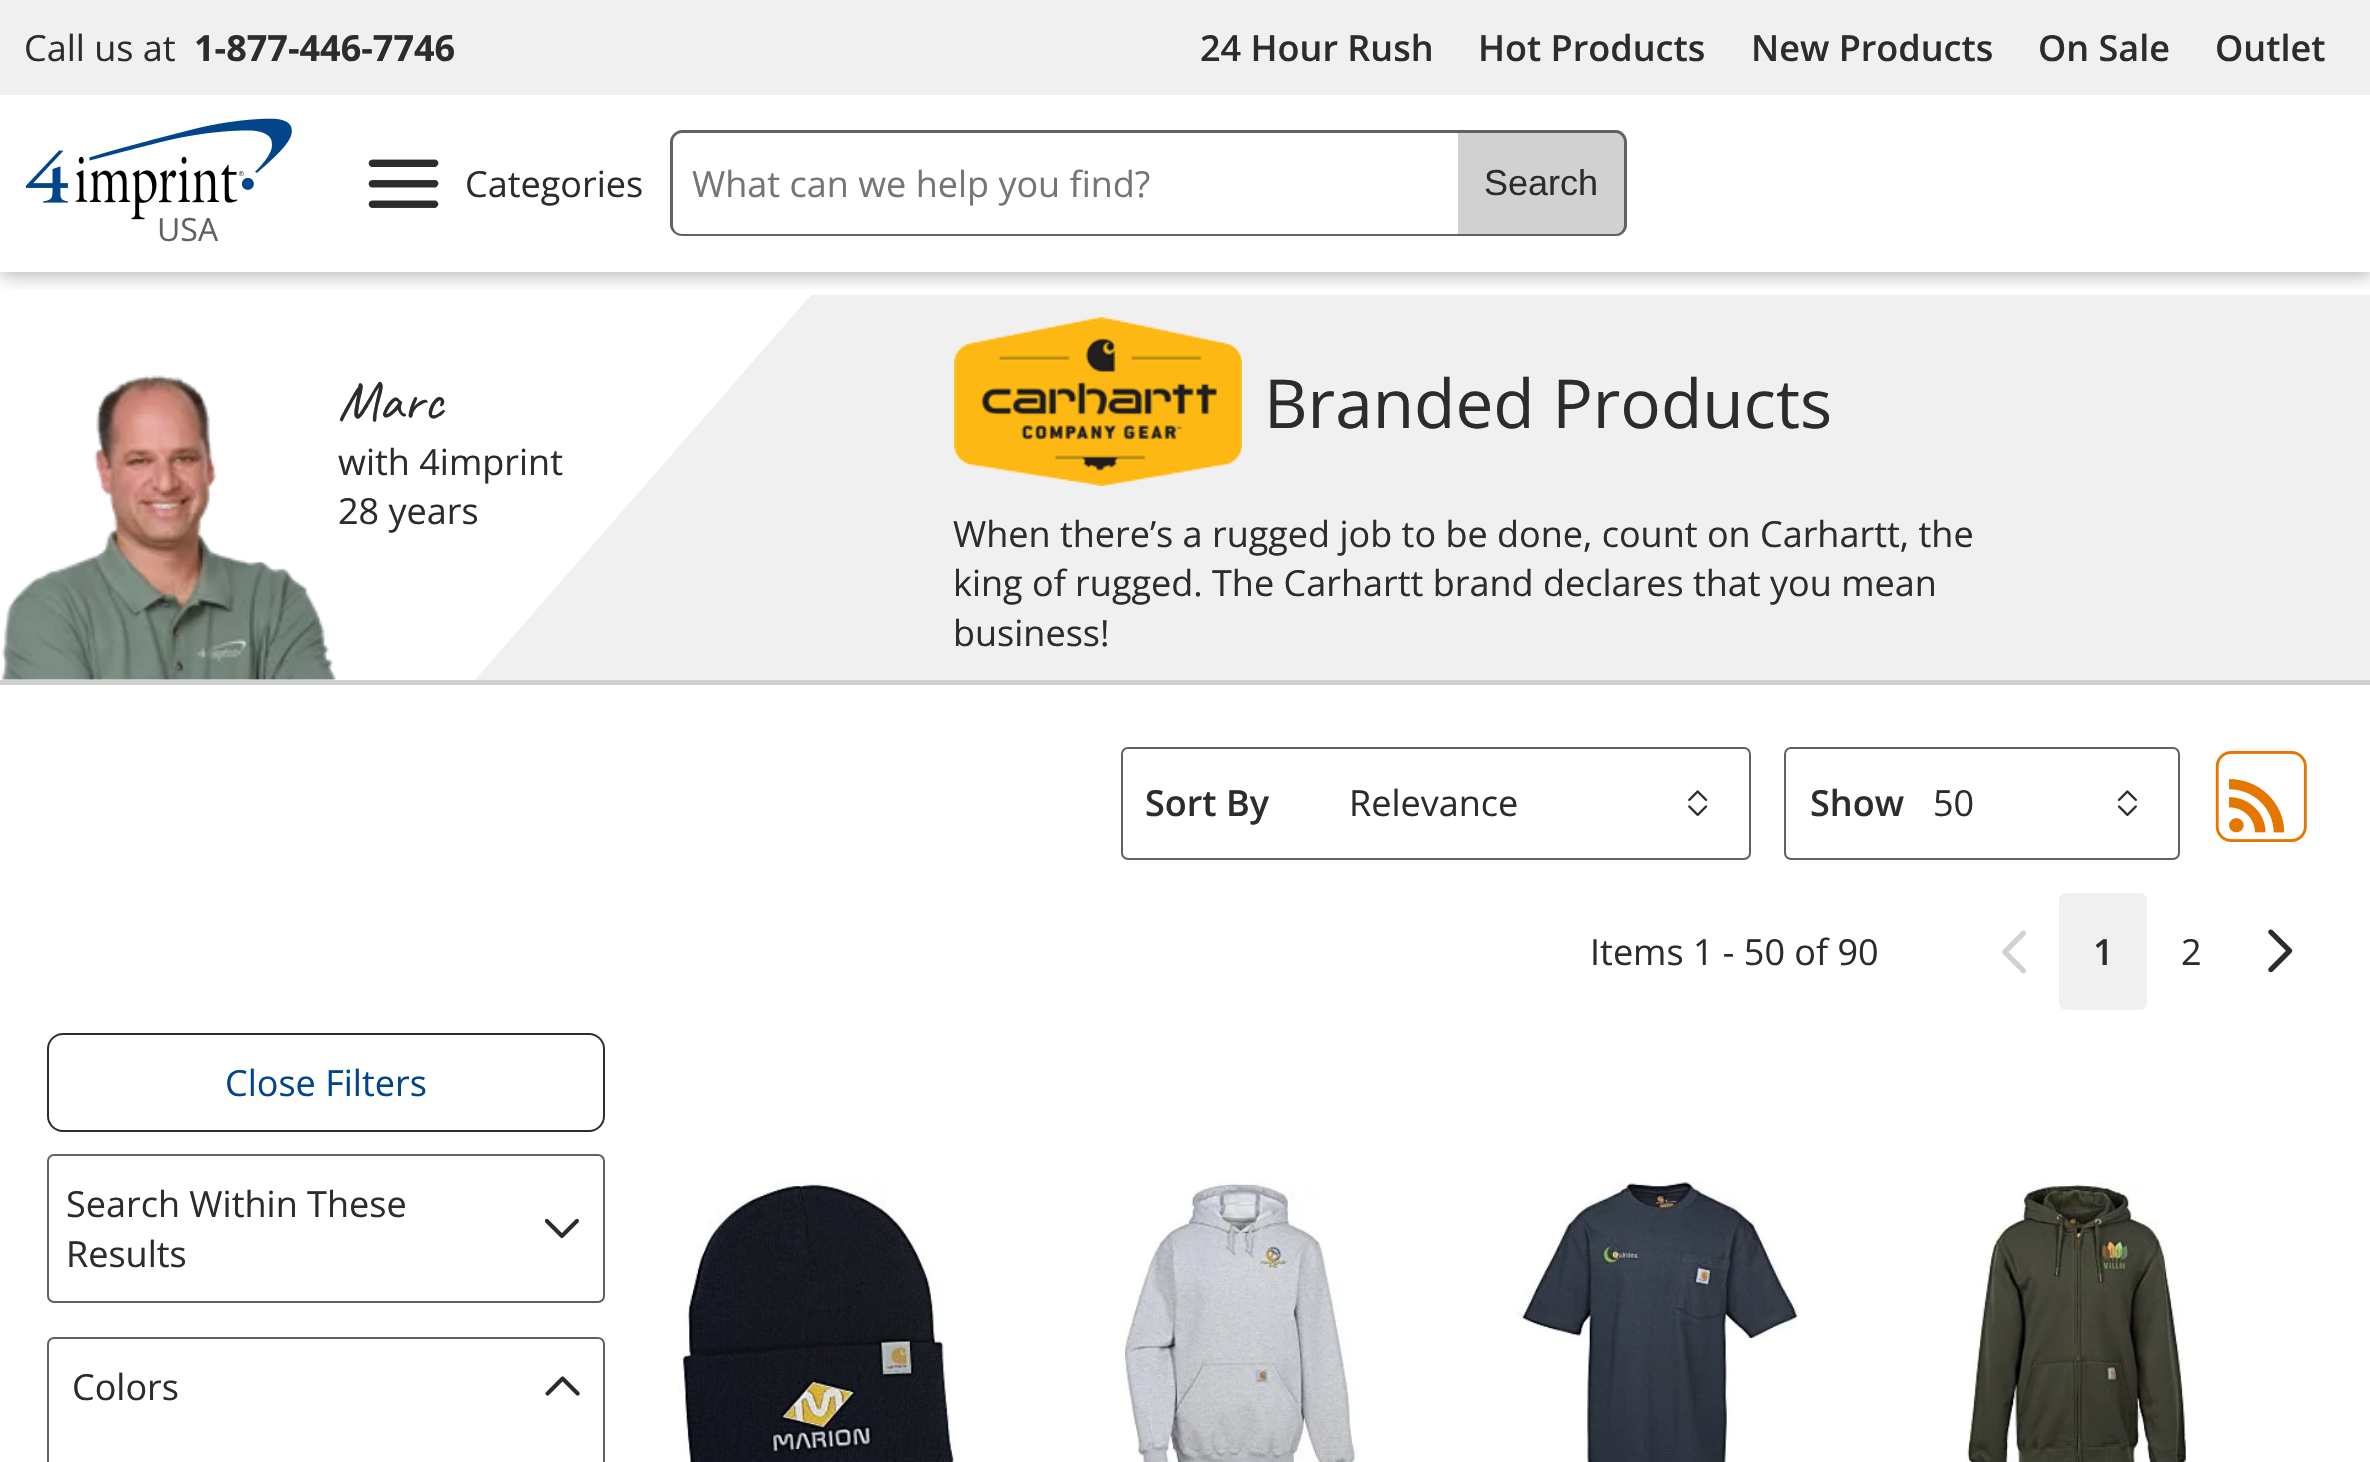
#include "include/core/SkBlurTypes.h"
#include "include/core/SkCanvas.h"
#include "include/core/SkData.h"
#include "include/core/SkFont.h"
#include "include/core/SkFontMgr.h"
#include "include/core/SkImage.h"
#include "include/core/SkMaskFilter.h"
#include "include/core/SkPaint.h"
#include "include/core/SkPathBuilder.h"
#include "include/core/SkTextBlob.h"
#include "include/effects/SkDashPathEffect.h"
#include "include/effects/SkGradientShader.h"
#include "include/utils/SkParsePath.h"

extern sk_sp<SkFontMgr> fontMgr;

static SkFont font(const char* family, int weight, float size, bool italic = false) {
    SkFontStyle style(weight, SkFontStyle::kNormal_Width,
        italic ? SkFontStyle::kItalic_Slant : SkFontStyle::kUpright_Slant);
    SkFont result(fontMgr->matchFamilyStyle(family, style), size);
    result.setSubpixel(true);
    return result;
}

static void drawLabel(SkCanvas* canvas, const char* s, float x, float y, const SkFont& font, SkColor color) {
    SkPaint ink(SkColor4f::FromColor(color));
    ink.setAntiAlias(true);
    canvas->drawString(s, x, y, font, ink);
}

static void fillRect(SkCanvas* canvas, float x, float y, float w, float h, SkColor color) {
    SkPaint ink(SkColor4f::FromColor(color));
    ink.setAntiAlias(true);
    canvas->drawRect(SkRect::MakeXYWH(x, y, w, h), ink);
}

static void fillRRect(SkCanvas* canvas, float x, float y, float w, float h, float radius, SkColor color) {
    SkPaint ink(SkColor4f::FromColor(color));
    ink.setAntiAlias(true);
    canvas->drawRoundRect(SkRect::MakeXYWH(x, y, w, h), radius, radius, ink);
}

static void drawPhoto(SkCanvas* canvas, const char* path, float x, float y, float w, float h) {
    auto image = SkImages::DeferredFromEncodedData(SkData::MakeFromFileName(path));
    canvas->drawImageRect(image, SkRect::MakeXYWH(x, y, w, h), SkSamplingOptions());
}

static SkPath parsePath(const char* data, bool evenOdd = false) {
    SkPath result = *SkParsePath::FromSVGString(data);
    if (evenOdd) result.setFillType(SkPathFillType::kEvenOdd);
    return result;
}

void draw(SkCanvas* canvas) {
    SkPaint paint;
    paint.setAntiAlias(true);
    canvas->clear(0xFFFFFFFF);
    paint.setColor(0xFFF1F0F0);
    canvas->drawPath(parsePath("M811 295H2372V680H475Z"), paint);
    canvas->save();
    canvas->clipRect(SkRect::MakeXYWH(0, 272, 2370, 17));
    paint.setColor(0x4D000000);
    paint.setMaskFilter(SkMaskFilter::MakeBlur(kNormal_SkBlurStyle, 9));
    canvas->drawRect(SkRect::MakeXYWH(0, 2, 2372, 273), paint);
    paint.setMaskFilter(nullptr);
    canvas->restore();
    fillRect(canvas, 0, 0, 2370, 95, 0xFFF0F0F0);
    SkFont font1 = font("Open Sans", 400, 36);
    drawLabel(canvas, "Call us at", 24, 61, font1, 0xFF2C2C2C);
    SkFont font2 = font("Open Sans", 700, 36);
    drawLabel(canvas, "1-877-446-7746", 194, 61, font2, 0xFF2C2C2C);
    SkFont font3 = font("Open Sans", 600, 36);
    drawLabel(canvas, "24 Hour Rush", 1200, 61, font3, 0xFF2C2C2C);
    drawLabel(canvas, "Hot Products", 1478, 61, font3, 0xFF2C2C2C);
    drawLabel(canvas, "New Products", 1751, 61, font3, 0xFF2C2C2C);
    drawLabel(canvas, "On Sale", 2038, 61, font3, 0xFF2C2C2C);
    drawLabel(canvas, "Outlet", 2215, 61, font3, 0xFF2C2C2C);
    drawPhoto(canvas, "assets/img1.png", 368, 159, 71, 49);
    drawLabel(canvas, "Categories", 465, 197, font1, 0xFF2C2C2C);
    paint.setColor(0xFF616161);
    canvas->drawPath(parsePath("M682 130H1458V236H682C676 236 670 231 670 225V142C670 136 676 130 682 130ZM682 133H1458V234H682C677 234 673 230 673 225V142C673 137 677 133 682 133Z", true), paint);
    drawLabel(canvas, "What can we help you find?", 692, 197, font1, 0xFF757575);
    paint.setColor(0xFFD1D1D1);
    canvas->drawPath(parsePath("M1458 131H1616C1622 131 1627 136 1627 142V225C1627 231 1622 236 1616 236H1458Z"), paint);
    paint.setColor(0xFF616161);
    canvas->drawPath(parsePath("M1458 130H1616C1622 130 1627 136 1627 142V225C1627 231 1622 236 1616 236H1458ZM1458 133H1616C1620 133 1624 137 1624 142V225C1624 230 1620 234 1616 234H1458Z", true), paint);
    SkFont font4 = font("Liberation Sans", 400, 36);
    drawLabel(canvas, "Search", 1484, 195, font4, 0xFF2C2C2C);
    drawPhoto(canvas, "assets/img2.png", 25, 118, 267, 102);
    SkFont font5 = font("Open Sans", 400, 32);
    drawLabel(canvas, "USA", 157, 241, font5, 0xFF616161);
    fillRect(canvas, 0, 680, 2370, 5, 0xFFD1D1D1);
    drawPhoto(canvas, "assets/img3.png", 1, 375, 335, 305);
    SkFont font6 = font("Caveat", 400, 56);
    drawLabel(canvas, "Marc", 338, 419, font6, 0xFF2C2C2C);
    drawLabel(canvas, "with 4imprint", 338, 475, font1, 0xFF2C2C2C);
    drawLabel(canvas, "28 years", 338, 524, font1, 0xFF2C2C2C);
    drawPhoto(canvas, "assets/img4.png", 954, 317, 288, 169);
    SkFont font7 = font("Open Sans", 400, 67.5f);
    drawLabel(canvas, "Branded Products", 1264, 428, font7, 0xFF2C2C2C);
    drawLabel(canvas, "When there’s a rugged job to be done, count on Carhartt, the", 953, 547, font1, 0xFF2C2C2C);
    drawLabel(canvas, "king of rugged. The Carhartt brand declares that you mean", 953, 596, font1, 0xFF2C2C2C);
    drawLabel(canvas, "business!", 953, 646, font1, 0xFF2C2C2C);
    paint.setStroke(true);
    paint.setStrokeWidth(2);
    canvas->drawRoundRect(SkRect::MakeXYWH(1122, 748, 628, 111), 6, 6, paint);
    drawLabel(canvas, "Sort By", 1145, 816, font3, 0xFF2C2C2C);
    drawPhoto(canvas, "assets/img5.png", 1688, 790, 20, 27);
    drawLabel(canvas, "Relevance", 1349, 816, font1, 0xFF2C2C2C);
    canvas->drawRoundRect(SkRect::MakeXYWH(1785, 748, 394, 111), 6, 6, paint);
    drawLabel(canvas, "Show", 1810, 816, font3, 0xFF2C2C2C);
    drawPhoto(canvas, "assets/img6.png", 2117, 790, 20, 27);
    drawLabel(canvas, "50", 1933, 816, font1, 0xFF2C2C2C);
    drawPhoto(canvas, "assets/img7.png", 2215, 751, 92, 91);
    drawLabel(canvas, "Items 1 - 50 of 90", 1590, 965, font1, 0xFF2C2C2C);
    drawPhoto(canvas, "assets/img8.png", 2002, 930, 24, 44);
    fillRRect(canvas, 2059, 893, 88, 117, 7, 0xFFF0F0F0);
    drawLabel(canvas, "1", 2093, 965, font3, 0xFF2C2C2C);
    drawLabel(canvas, "2", 2181, 965, font1, 0xFF2C2C2C);
    drawPhoto(canvas, "assets/img9.png", 2268, 929, 25, 44);
    paint.setColor(0xFF2C2C2C);
    canvas->drawRoundRect(SkRect::MakeXYWH(48, 1034, 556, 97), 15, 15, paint);
    drawLabel(canvas, "Close Filters", 225, 1096, font1, 0xFF02458B);
    paint.setColor(0xFF616161);
    canvas->drawRoundRect(SkRect::MakeXYWH(48, 1155, 556, 147), 6, 6, paint);
    drawLabel(canvas, "Search Within These", 66, 1217, font1, 0xFF2C2C2C);
    drawLabel(canvas, "Results", 66, 1267, font1, 0xFF2C2C2C);
    drawPhoto(canvas, "assets/img10.png", 545, 1218, 34, 21);
    canvas->drawRoundRect(SkRect::MakeXYWH(48, 1338, 556, 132), 6, 6, paint);
    drawLabel(canvas, "Colors", 72, 1400, font1, 0xFF2C2C2C);
    drawPhoto(canvas, "assets/img11.png", 545, 1376, 35, 20);
    drawPhoto(canvas, "assets/img12.png", 679, 1181, 275, 281);
    drawPhoto(canvas, "assets/img13.png", 1122, 1181, 236, 281);
    drawPhoto(canvas, "assets/img14.png", 1516, 1181, 283, 281);
    drawPhoto(canvas, "assets/img15.png", 1966, 1182, 222, 280);
}
